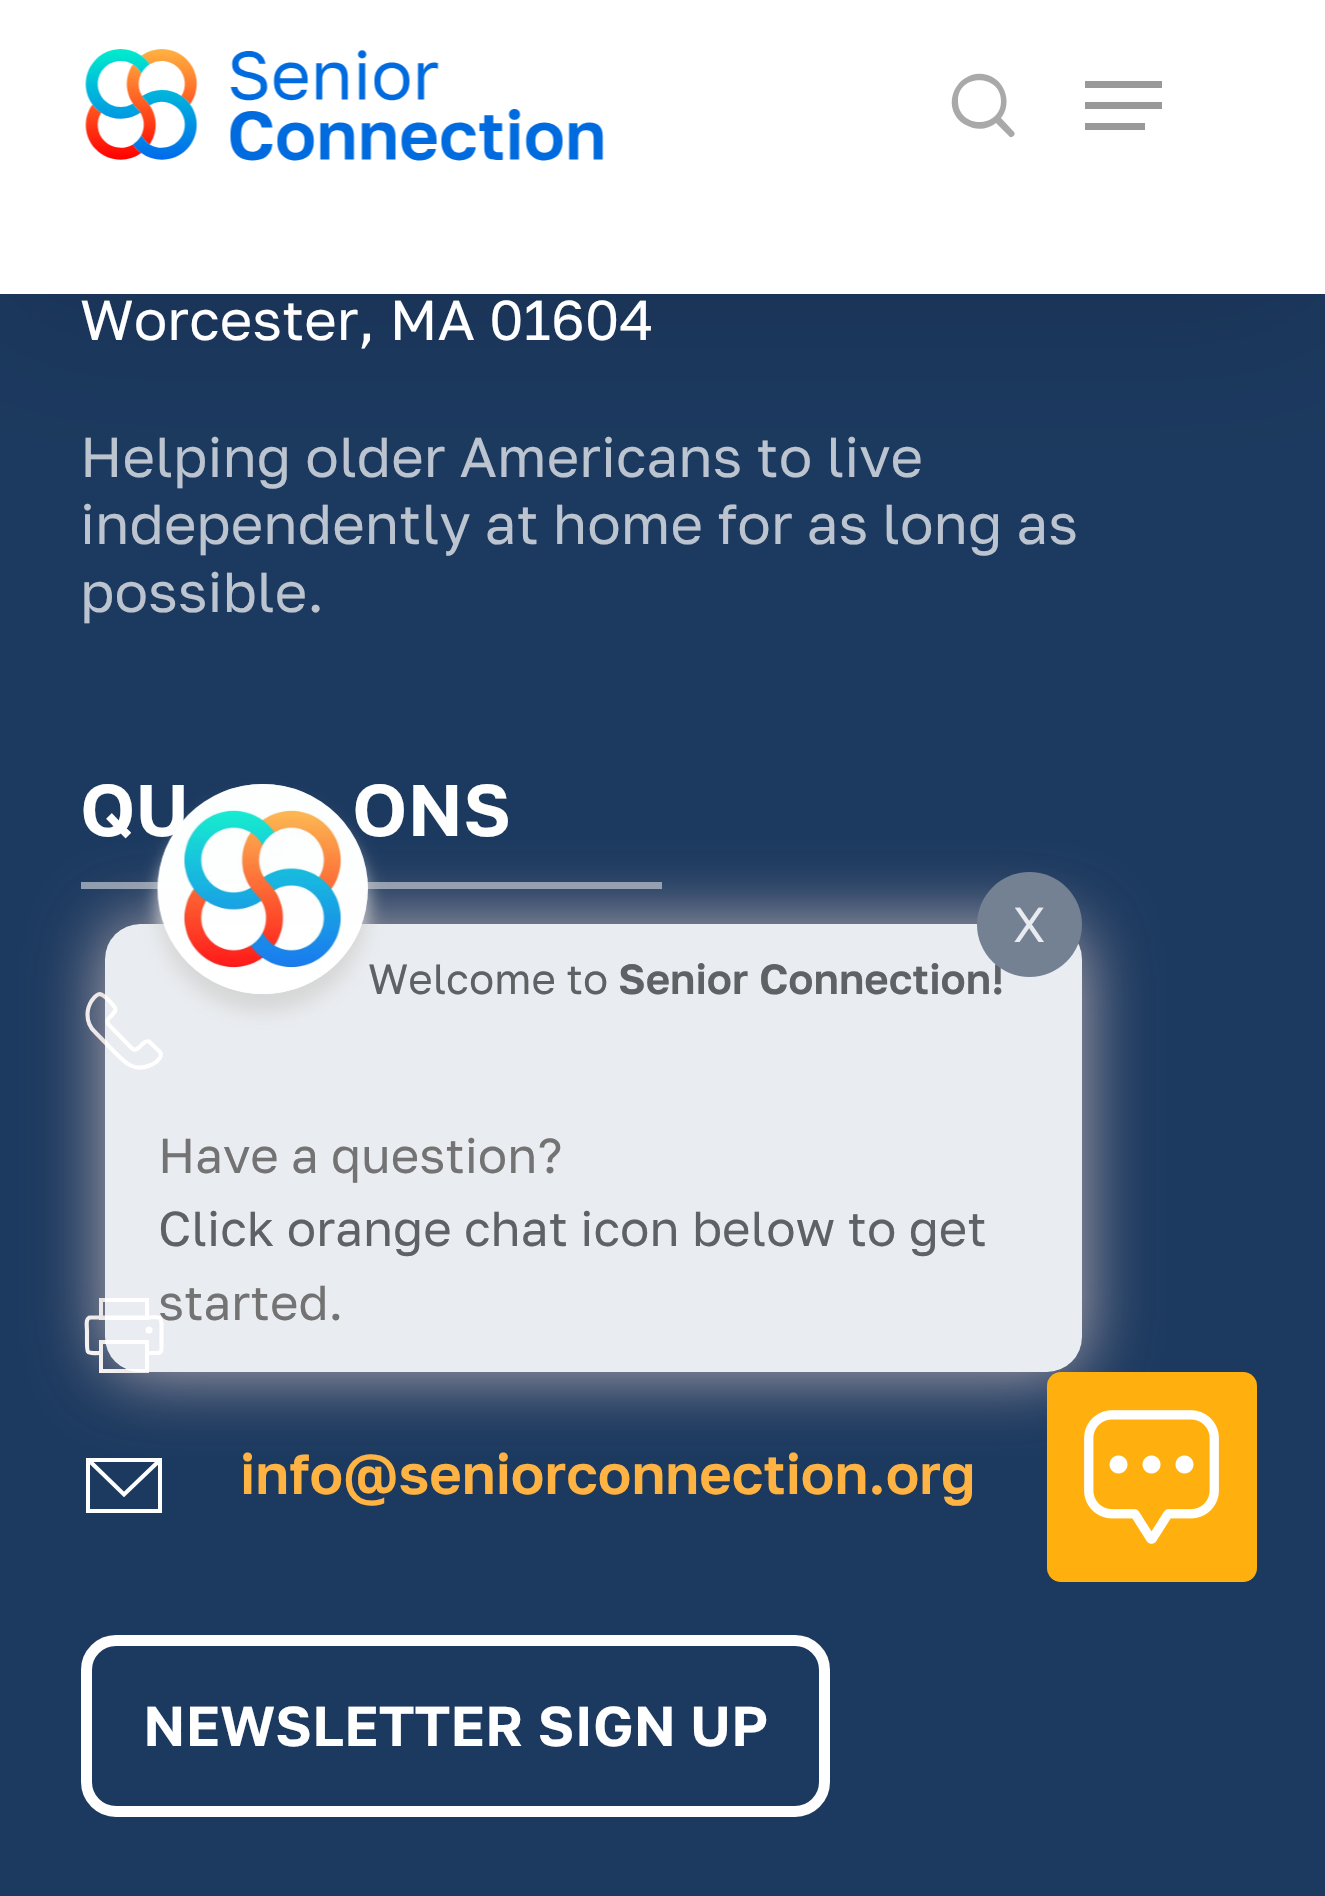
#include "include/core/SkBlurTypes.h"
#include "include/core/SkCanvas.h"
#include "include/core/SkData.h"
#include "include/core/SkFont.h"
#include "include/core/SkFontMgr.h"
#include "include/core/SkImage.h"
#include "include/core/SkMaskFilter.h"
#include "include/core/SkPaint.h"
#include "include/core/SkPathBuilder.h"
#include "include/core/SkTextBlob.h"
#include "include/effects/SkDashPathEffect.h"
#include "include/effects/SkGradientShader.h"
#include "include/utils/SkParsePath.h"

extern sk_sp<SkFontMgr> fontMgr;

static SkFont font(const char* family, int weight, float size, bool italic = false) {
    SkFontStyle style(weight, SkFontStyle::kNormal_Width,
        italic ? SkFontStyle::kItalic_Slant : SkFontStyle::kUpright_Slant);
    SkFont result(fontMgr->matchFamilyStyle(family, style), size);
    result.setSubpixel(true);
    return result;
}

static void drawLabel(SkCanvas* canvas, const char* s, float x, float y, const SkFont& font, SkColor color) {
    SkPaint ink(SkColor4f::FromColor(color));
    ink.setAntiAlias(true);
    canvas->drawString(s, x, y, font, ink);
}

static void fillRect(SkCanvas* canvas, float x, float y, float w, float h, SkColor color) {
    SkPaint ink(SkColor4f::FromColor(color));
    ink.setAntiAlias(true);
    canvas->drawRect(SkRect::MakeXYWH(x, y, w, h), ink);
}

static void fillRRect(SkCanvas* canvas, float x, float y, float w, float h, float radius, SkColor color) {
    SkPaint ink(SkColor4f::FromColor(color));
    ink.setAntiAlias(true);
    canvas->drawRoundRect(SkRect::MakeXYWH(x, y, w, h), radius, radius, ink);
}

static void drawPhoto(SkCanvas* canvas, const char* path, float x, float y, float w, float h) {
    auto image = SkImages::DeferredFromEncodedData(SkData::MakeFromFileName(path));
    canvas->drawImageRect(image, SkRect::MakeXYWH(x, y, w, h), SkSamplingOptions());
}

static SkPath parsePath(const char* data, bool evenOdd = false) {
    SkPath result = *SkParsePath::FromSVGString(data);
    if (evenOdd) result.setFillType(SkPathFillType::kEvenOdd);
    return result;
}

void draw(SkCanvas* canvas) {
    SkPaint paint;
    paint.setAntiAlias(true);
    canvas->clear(0xFF1C395F);
    paint.setColor(0x26000000);
    paint.setMaskFilter(SkMaskFilter::MakeBlur(kNormal_SkBlurStyle, 79));
    canvas->drawRect(SkRect::MakeXYWH(0, 11, 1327, 294), paint);
    paint.setMaskFilter(nullptr);
    fillRect(canvas, 0, 0, 1325, 294, 0xFFFFFFFF);
    drawPhoto(canvas, "assets/img1.png", 85, 49, 519, 112);
    paint.setColor(0xFFA9A9A9);
    canvas->drawPath(parsePath("M1014 132L1001 118C1011 106 1007 86 994 78C968 62 940 94 957 118C961 123 967 126 973 128C981 130 990 128 996 123L1010 137C1013 138 1016 134 1014 132ZM958 101C958 73 1001 74 1001 101C1001 129 958 129 958 101Z"), paint);
    fillRect(canvas, 1085, 81, 77, 7, 0xFF999999);
    fillRect(canvas, 1085, 123, 60, 7, 0xFF999999);
    fillRect(canvas, 1085, 102, 77, 7, 0xFF999999);
    SkFont font1 = font("Golos Text", 400, 56);
    drawLabel(canvas, "Worcester, MA 01604", 80, 340, font1, 0xFFFFFFFF);
    drawLabel(canvas, "Helping older Americans to live", 80, 477, font1, 0xFFBBC4CF);
    drawLabel(canvas, "independently at home for as long as", 80, 544, font1, 0xFFBBC4CF);
    drawLabel(canvas, "possible.", 80, 612, font1, 0xFFBBC4CF);
    SkFont font2 = font("Golos Text", 600, 73);
    drawLabel(canvas, "QU", 80, 836, font2, 0xFFFFFFFF);
    drawLabel(canvas, "ONS", 352, 836, font2, 0xFFFFFFFF);
    fillRect(canvas, 81, 882, 581, 7, 0xFF8E9CAF);
    paint.setStroke(true);
    paint.setStrokeWidth(4.1f);
    paint.setColor(0xFFFFFFFF);
    canvas->drawPath(parsePath("M95 1032L113.5 1051C124 1061.5 133 1072.5 149.5 1065.5C153.5 1064 158 1061 160 1057.5C161.5 1055.5 161 1053 159.5 1051.5L149 1041.5C142 1039 138.5 1054.5 131.5 1048L108.5 1024.5C103.5 1017.5 118 1014.5 115 1007.5L109 1000.5C101.5 993.5 99 990.5 91.5 1001C89 1005 87.5 1010 87.5 1014.5C87.5 1021.5 90 1027.5 95 1032Z"), paint);
    paint.setStrokeWidth(4);
    canvas->drawRect(SkRect::MakeXYWH(101, 1300, 46, 18), paint);
    paint.setStrokeWidth(4.1f);
    canvas->drawPath(parsePath("M101 1353C86.5 1353 87 1355.5 87 1340V1330.5C87 1327.5 85 1317.5 90.5 1317.5H146.5C159 1317.5 161.5 1314.5 161.5 1326V1344.5C161.5 1350 162.5 1353 156 1353H147.5"), paint);
    paint.setStroke(false);
    canvas->drawCircle(149, 1330, 3.5f, paint);
    paint.setStroke(true);
    paint.setStrokeWidth(4);
    canvas->drawRect(SkRect::MakeXYWH(101, 1342, 46, 29), paint);
    canvas->drawRect(SkRect::MakeXYWH(88, 1460, 72, 51), paint);
    paint.setStrokeWidth(4.1f);
    canvas->drawPath(parsePath("M88.5 1460L124 1494.5L160 1460"), paint);
    SkFont font3 = font("Golos Text", 600, 56);
    drawLabel(canvas, "info@seniorconnection.org", 240, 1494, font3, 0xFFFFB342);
    paint.setStrokeWidth(11);
    canvas->drawRoundRect(SkRect::MakeXYWH(86.5f, 1640.5f, 738, 171), 29.5f, 29.5f, paint);
    drawLabel(canvas, "NEWSLETTER SIGN UP", 143, 1746, font3, 0xFFFFFFFF);
    canvas->save();
    canvas->clipPath(parsePath("M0 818H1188V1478H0ZM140 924H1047C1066.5 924 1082 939.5 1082 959V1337C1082 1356.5 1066.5 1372 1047 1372H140C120.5 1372 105 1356.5 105 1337V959C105 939.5 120.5 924 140 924Z", true), true);
    paint.setStroke(false);
    paint.setColor(0xE6CEBDBD);
    paint.setMaskFilter(SkMaskFilter::MakeBlur(kNormal_SkBlurStyle, 35));
    canvas->drawRoundRect(SkRect::MakeXYWH(105, 924, 977, 448), 35, 35, paint);
    paint.setMaskFilter(nullptr);
    canvas->restore();
    fillRRect(canvas, 105, 924, 977, 448, 35, 0xE6FFFFFF);
    SkFont font4 = font("Golos Text", 600, 42);
    drawLabel(canvas, "Senior Connection!", 618, 994, font4, 0xFF5F6265);
    paint.setColor(0xFF738193);
    canvas->drawCircle(1029.5f, 924.5f, 52.5f, paint);
    SkFont font5 = font("Golos Text", 400, 49);
    drawLabel(canvas, "X", 1013, 942, font5, 0xFFE8EBEF);
    canvas->save();
    canvas->clipPath(parsePath("M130 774H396V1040H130ZM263 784C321 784 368 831 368 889C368 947 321 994 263 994C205 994 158 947 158 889C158 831 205 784 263 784Z", true), true);
    paint.setColor(0xE6D5D5D5);
    paint.setMaskFilter(SkMaskFilter::MakeBlur(kNormal_SkBlurStyle, 9));
    canvas->drawRoundRect(SkRect::MakeXYWH(158, 802, 210, 210), 105, 105, paint);
    paint.setMaskFilter(nullptr);
    canvas->restore();
    paint.setColor(0xE6FFFFFF);
    canvas->drawCircle(263, 889, 105, paint);
    drawPhoto(canvas, "assets/img2.png", 157, 784, 211, 210);
    SkFont font6 = font("Golos Text", 400, 42);
    drawLabel(canvas, "Welcome to", 368, 994, font6, 0xFF5F6265);
    drawLabel(canvas, "Have a question?", 158, 1173, font5, 0xFF737374);
    drawLabel(canvas, "Click orange chat icon below to get", 158, 1246, font5, 0xFF5F6265);
    drawLabel(canvas, "started.", 158, 1320, font5, 0xFF737374);
    fillRRect(canvas, 1047, 1372, 210, 210, 14, 0xFFFFB00E);
    drawPhoto(canvas, "assets/img3.png", 1084, 1410, 135, 134);
}
